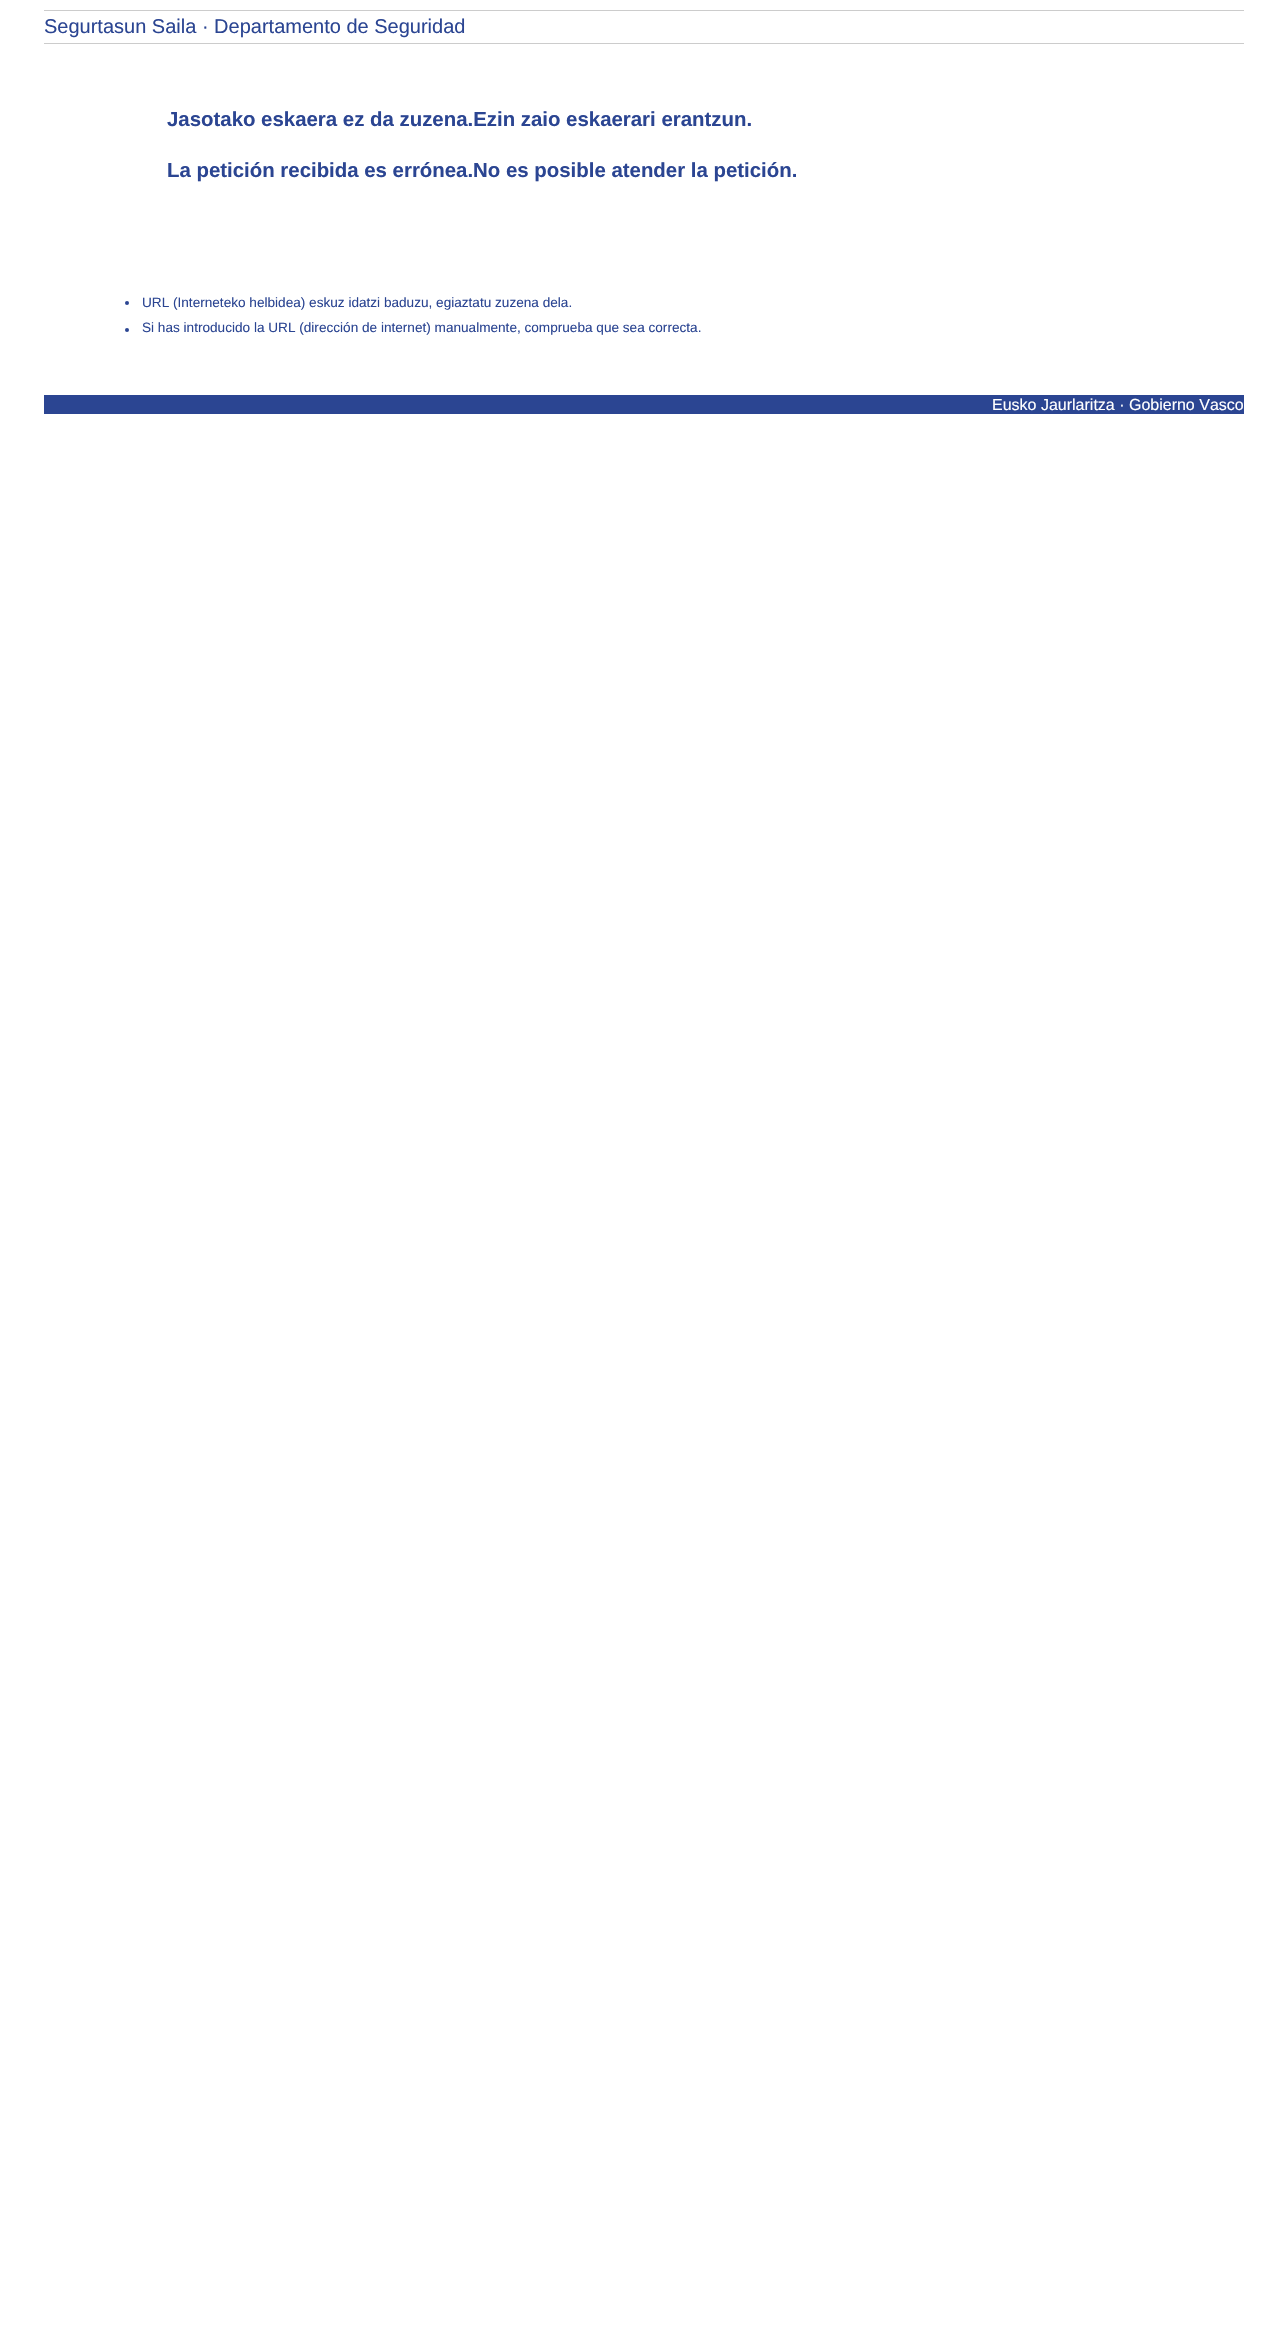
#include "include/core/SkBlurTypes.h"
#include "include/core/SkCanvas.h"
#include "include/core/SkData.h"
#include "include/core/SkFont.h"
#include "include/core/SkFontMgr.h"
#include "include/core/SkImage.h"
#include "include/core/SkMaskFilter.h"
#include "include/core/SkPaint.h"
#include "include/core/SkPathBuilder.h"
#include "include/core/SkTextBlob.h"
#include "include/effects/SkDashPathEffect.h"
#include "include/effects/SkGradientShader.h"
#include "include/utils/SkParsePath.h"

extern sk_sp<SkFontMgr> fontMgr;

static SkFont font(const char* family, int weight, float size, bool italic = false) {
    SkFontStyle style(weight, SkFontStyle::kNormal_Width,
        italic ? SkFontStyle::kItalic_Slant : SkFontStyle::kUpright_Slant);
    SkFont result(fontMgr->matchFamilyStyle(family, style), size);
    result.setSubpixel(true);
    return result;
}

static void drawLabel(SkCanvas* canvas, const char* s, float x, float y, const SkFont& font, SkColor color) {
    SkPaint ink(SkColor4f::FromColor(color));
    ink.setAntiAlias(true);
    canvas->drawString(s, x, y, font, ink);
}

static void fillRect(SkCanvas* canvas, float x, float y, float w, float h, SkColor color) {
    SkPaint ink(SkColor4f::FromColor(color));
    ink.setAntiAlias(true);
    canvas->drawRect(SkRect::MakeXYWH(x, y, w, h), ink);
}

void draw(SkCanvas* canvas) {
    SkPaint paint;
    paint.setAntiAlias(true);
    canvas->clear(0xFFFFFFFF);
    fillRect(canvas, 44, 10, 1200, 1, 0xFFCCCCCC);
    fillRect(canvas, 44, 43, 1200, 1, 0xFFCCCCCC);
    SkFont font1 = font("Liberation Sans", 400, 20);
    drawLabel(canvas, "Segurtasun Saila · Departamento de Seguridad", 44, 33, font1, 0xFF2B4592);
    SkFont font2 = font("Liberation Sans", 700, 20.4f);
    drawLabel(canvas, "Jasotako eskaera ez da zuzena.Ezin zaio eskaerari erantzun.", 167, 126, font2, 0xFF2B4592);
    drawLabel(canvas, "La petición recibida es errónea.No es posible atender la petición.", 167, 177, font2, 0xFF2B4592);
    paint.setColor(0xFF2B4592);
    canvas->drawCircle(127, 303, 2, paint);
    SkFont font3 = font("Liberation Sans", 400, 13.6f);
    drawLabel(canvas, "URL (Interneteko helbidea) eskuz idatzi baduzu, egiaztatu zuzena dela.", 142, 307, font3, 0xFF2B4592);
    canvas->drawCircle(127, 330, 2, paint);
    drawLabel(canvas, "Si has introducido la URL (dirección de internet) manualmente, comprueba que sea correcta.", 142, 332, font3, 0xFF2B4592);
    fillRect(canvas, 44, 395, 1200, 19, 0xFF2B4592);
    SkFont font4 = font("Liberation Sans", 400, 16);
    drawLabel(canvas, "Eusko Jaurlaritza · Gobierno Vasco", 992, 410, font4, 0xFFFFFFFF);
}
